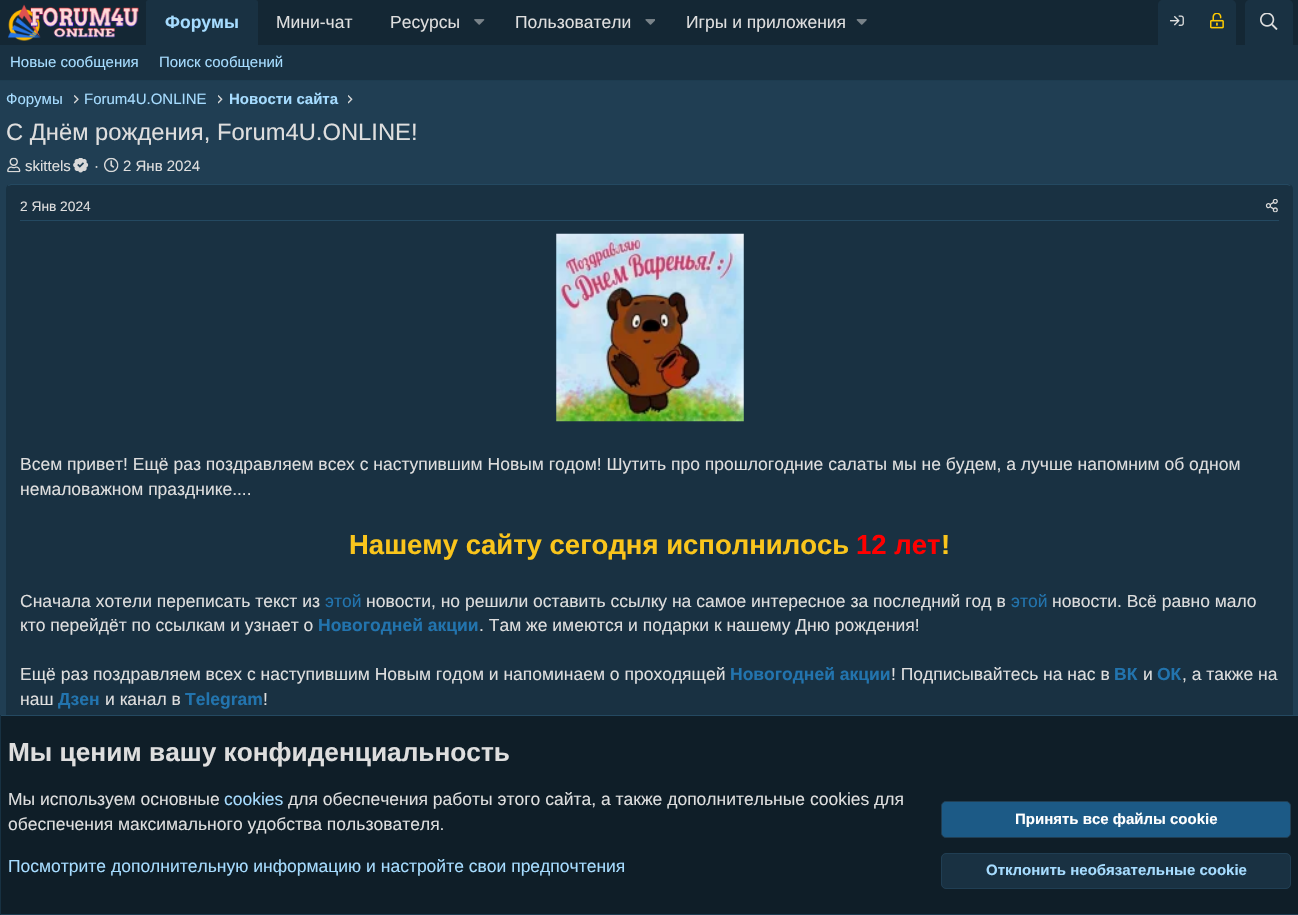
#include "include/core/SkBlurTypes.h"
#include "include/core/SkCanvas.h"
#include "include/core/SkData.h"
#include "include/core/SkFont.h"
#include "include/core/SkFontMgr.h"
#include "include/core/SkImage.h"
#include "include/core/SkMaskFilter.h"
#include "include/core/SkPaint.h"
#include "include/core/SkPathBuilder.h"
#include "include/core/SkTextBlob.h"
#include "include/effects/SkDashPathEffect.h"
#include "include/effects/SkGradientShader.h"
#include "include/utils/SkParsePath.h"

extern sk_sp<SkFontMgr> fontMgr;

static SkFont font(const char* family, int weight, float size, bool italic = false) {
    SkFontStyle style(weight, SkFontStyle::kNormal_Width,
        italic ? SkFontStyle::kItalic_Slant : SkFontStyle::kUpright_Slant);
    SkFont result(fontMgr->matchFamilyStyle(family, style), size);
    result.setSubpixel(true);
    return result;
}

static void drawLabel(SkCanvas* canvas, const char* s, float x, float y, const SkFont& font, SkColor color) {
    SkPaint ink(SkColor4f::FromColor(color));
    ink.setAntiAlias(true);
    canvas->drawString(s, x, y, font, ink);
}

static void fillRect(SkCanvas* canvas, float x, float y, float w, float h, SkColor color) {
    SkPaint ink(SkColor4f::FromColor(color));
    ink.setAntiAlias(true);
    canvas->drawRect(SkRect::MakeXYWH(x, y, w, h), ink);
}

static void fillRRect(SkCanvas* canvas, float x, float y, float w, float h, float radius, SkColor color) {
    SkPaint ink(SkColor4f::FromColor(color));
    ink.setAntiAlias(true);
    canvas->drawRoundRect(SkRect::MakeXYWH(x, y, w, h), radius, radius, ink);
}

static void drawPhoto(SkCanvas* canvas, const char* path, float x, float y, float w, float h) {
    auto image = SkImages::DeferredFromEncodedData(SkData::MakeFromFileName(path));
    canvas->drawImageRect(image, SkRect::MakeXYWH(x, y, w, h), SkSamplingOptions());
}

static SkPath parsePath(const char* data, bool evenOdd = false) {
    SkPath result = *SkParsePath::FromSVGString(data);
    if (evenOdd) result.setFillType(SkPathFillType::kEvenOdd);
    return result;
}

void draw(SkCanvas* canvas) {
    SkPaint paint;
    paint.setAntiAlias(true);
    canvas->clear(0xFF203E53);
    fillRect(canvas, 0, 0, 1298, 45, 0xFF142734);
    drawPhoto(canvas, "assets/img1.png", 8, 4, 131, 37);
    paint.setColor(0xFF193142);
    canvas->drawPath(parsePath("M148.5 0H255.5C257 0 258 1 258 2.5V45H146V2.5C146 1 147 0 148.5 0Z"), paint);
    SkFont font1 = font("Liberation Sans", 700, 17.5f);
    drawLabel(canvas, "Форумы", 165, 28, font1, 0xFFA6DCFF);
    SkFont font2 = font("Liberation Sans", 400, 17.5f);
    drawLabel(canvas, "Мини-чат", 276, 28, font2, 0xFFDEDEDE);
    drawLabel(canvas, "Ресурсы", 390, 28, font2, 0xFFDEDEDE);
    drawPhoto(canvas, "assets/img2.png", 474, 19, 11, 6);
    drawLabel(canvas, "Пользователи", 515, 28, font2, 0xFFDEDEDE);
    drawPhoto(canvas, "assets/img3.png", 645, 19, 10, 6);
    drawLabel(canvas, "Игры и приложения", 686, 28, font2, 0xFFDEDEDE);
    drawPhoto(canvas, "assets/img4.png", 856, 19, 11, 6);
    canvas->drawPath(parsePath("M1163 0H1231C1234 0 1236 2 1236 5V45H1158V5C1158 2 1160 0 1163 0Z"), paint);
    drawPhoto(canvas, "assets/img5.png", 1170, 15, 14, 11);
    drawPhoto(canvas, "assets/img6.png", 1210, 13, 14, 16);
    canvas->drawPath(parsePath("M1250 0H1288C1291 0 1293 2 1293 5V45H1245V5C1245 2 1247 0 1250 0Z"), paint);
    drawPhoto(canvas, "assets/img7.png", 1260, 13, 18, 17);
    fillRect(canvas, 0, 45, 1298, 35, 0xFF193142);
    fillRect(canvas, 0, 80, 1298, 1, 0xFF1D3C50);
    SkFont font3 = font("Liberation Sans", 400, 15);
    drawLabel(canvas, "Новые сообщения", 10, 67, font3, 0xFFA6DCFF);
    drawLabel(canvas, "Поиск сообщений", 159, 67, font3, 0xFFA6DCFF);
    drawLabel(canvas, "Форумы", 6, 104, font3, 0xFFA6DCFF);
    drawPhoto(canvas, "assets/img8.png", 74, 95, 5, 9);
    drawLabel(canvas, "Forum4U.ONLINE", 84, 104, font3, 0xFFA6DCFF);
    drawPhoto(canvas, "assets/img9.png", 218, 95, 5, 9);
    SkFont font4 = font("Liberation Sans", 700, 15);
    drawLabel(canvas, "Новости сайта", 229, 104, font4, 0xFFA6DCFF);
    drawPhoto(canvas, "assets/img9.png", 348, 95, 5, 9);
    SkFont font5 = font("Liberation Sans", 400, 23.75f);
    drawLabel(canvas, "С Днём рождения, Forum4U.ONLINE!", 6, 140, font5, 0xFFDEDEDE);
    drawPhoto(canvas, "assets/img10.png", 7, 157, 14, 16);
    drawLabel(canvas, "skittels", 25, 171, font3, 0xFFDEDEDE);
    drawPhoto(canvas, "assets/img11.png", 73, 158, 16, 15);
    drawLabel(canvas, "·", 94, 171, font3, 0xFFDEDEDE);
    drawPhoto(canvas, "assets/img12.png", 104, 157, 15, 16);
    drawLabel(canvas, "2 Янв 2024", 123, 171, font3, 0xFFDEDEDE);
    fillRRect(canvas, 6, 184, 1287, 687, 5, 0xFF193142);
    paint.setStroke(true);
    paint.setStrokeWidth(1.2f);
    paint.setColor(0xFF244961);
    canvas->drawPath(parsePath("M8 185.5L11 184.5H1287.5L1290.5 185.5"), paint);
    paint.setColor(0xFF173142);
    canvas->drawPath(parsePath("M1290.5 185.5C1291.5 186.5 1292 187.5 1292 189V866C1292 867.5 1291.5 868.5 1290.5 869.5"), paint);
    canvas->drawPath(parsePath("M8 869.5C7.5 868.5 7 867.5 7 866V189C7 187.5 7.5 186.5 8 185.5"), paint);
    fillRect(canvas, 20, 220, 1259, 1, 0xFF244961);
    SkFont font6 = font("Liberation Sans", 400, 13.75f);
    drawLabel(canvas, "2 Янв 2024", 20, 211, font6, 0xFFDEDEDE);
    drawPhoto(canvas, "assets/img13.png", 1265, 199, 13, 14);
    drawPhoto(canvas, "assets/img14.png", 556, 233, 188, 189);
    drawLabel(canvas, "Всем привет! Ещё раз поздравляем всех с наступившим Новым годом! Шутить про прошлогодние салаты мы не будем, а лучше напомним об одном", 20, 470, font2, 0xFFDEDEDE);
    drawLabel(canvas, "немаловажном празднике....", 20, 495, font2, 0xFFDEDEDE);
    SkFont font7 = font("Liberation Sans", 700, 27.5f);
    drawLabel(canvas, "Нашему сайту сегодня исполнилось", 349, 554, font7, 0xFFFAC51C);
    drawLabel(canvas, "12 лет", 856, 554, font7, 0xFFFF0000);
    drawLabel(canvas, "!", 941, 554, font7, 0xFFFAC51C);
    drawLabel(canvas, "Сначала хотели переписать текст из", 20, 607, font2, 0xFFDEDEDE);
    drawLabel(canvas, "этой", 325, 607, font2, 0xFF2274AE);
    drawLabel(canvas, "новости, но решили оставить ссылку на самое интересное за последний год в", 366, 607, font2, 0xFFDEDEDE);
    drawLabel(canvas, "этой", 1011, 607, font2, 0xFF2274AE);
    drawLabel(canvas, "новости. Всё равно мало", 1052, 607, font2, 0xFFDEDEDE);
    drawLabel(canvas, "кто перейдёт по ссылкам и узнает о", 20, 631, font2, 0xFFDEDEDE);
    drawLabel(canvas, "Новогодней акции", 318, 631, font1, 0xFF2274AE);
    drawLabel(canvas, ". Там же имеются и подарки к нашему Дню рождения!", 479, 631, font2, 0xFFDEDEDE);
    drawLabel(canvas, "Ещё раз поздравляем всех с наступившим Новым годом и напоминаем о проходящей", 20, 680, font2, 0xFFDEDEDE);
    drawLabel(canvas, "Новогодней акции", 730, 680, font1, 0xFF2274AE);
    drawLabel(canvas, "! Подписывайтесь на нас в", 891, 680, font2, 0xFFDEDEDE);
    drawLabel(canvas, "ВК", 1114, 680, font1, 0xFF2274AE);
    drawLabel(canvas, "и", 1143, 680, font2, 0xFFDEDEDE);
    drawLabel(canvas, "ОК", 1157, 680, font1, 0xFF2274AE);
    drawLabel(canvas, ", а также на", 1182, 680, font2, 0xFFDEDEDE);
    drawLabel(canvas, "наш", 20, 705, font2, 0xFFDEDEDE);
    drawLabel(canvas, "Дзен", 58, 705, font1, 0xFF2274AE);
    drawLabel(canvas, "и канал в", 105, 705, font2, 0xFFDEDEDE);
    drawLabel(canvas, "Telegram", 185, 705, font1, 0xFF2274AE);
    drawLabel(canvas, "!", 263, 705, font2, 0xFFDEDEDE);
    fillRect(canvas, 1, 716, 1297, 198, 0xFF0F1E28);
    fillRect(canvas, 0, 715, 1298, 1, 0xFF244961);
    fillRect(canvas, 0, 914, 1298, 1, 0xFF1D3C50);
    fillRect(canvas, 0, 715, 1, 200, 0xFF173142);
    SkFont font8 = font("Liberation Sans", 700, 26.25f);
    drawLabel(canvas, "Мы ценим вашу конфиденциальность", 8, 761, font8, 0xFFDEDEDE);
    drawLabel(canvas, "Мы используем основные", 8, 805, font2, 0xFFDEDEDE);
    drawLabel(canvas, "cookies", 224, 805, font2, 0xFFA6DCFF);
    drawLabel(canvas, "для обеспечения работы этого сайта, а также дополнительные cookies для", 288, 805, font2, 0xFFDEDEDE);
    drawLabel(canvas, "обеспечения максимального удобства пользователя.", 8, 830, font2, 0xFFDEDEDE);
    drawLabel(canvas, "Посмотрите дополнительную информацию и настройте свои предпочтения", 8, 872, font2, 0xFFA6DCFF);
    paint.setStroke(false);
    paint.setColor(0xFF1C5A86);
    canvas->drawRoundRect(SkRect::MakeXYWH(941.5f, 801.5f, 349, 36), 4.5f, 4.5f, paint);
    paint.setStroke(true);
    paint.setStrokeWidth(1);
    paint.setColor(0xFF203E53);
    canvas->drawRoundRect(SkRect::MakeXYWH(941.5f, 801.5f, 349, 36), 4.5f, 4.5f, paint);
    drawLabel(canvas, "Принять все файлы cookie", 1015, 824, font4, 0xFFFFFFFF);
    paint.setStroke(false);
    paint.setColor(0xFF193142);
    canvas->drawRoundRect(SkRect::MakeXYWH(941.5f, 853.5f, 349, 35), 4.5f, 4.5f, paint);
    paint.setStroke(true);
    paint.setColor(0xFF203E53);
    canvas->drawRoundRect(SkRect::MakeXYWH(941.5f, 853.5f, 349, 35), 4.5f, 4.5f, paint);
    drawLabel(canvas, "Отклонить необязательные cookie", 986, 875, font4, 0xFFA6DCFF);
}
